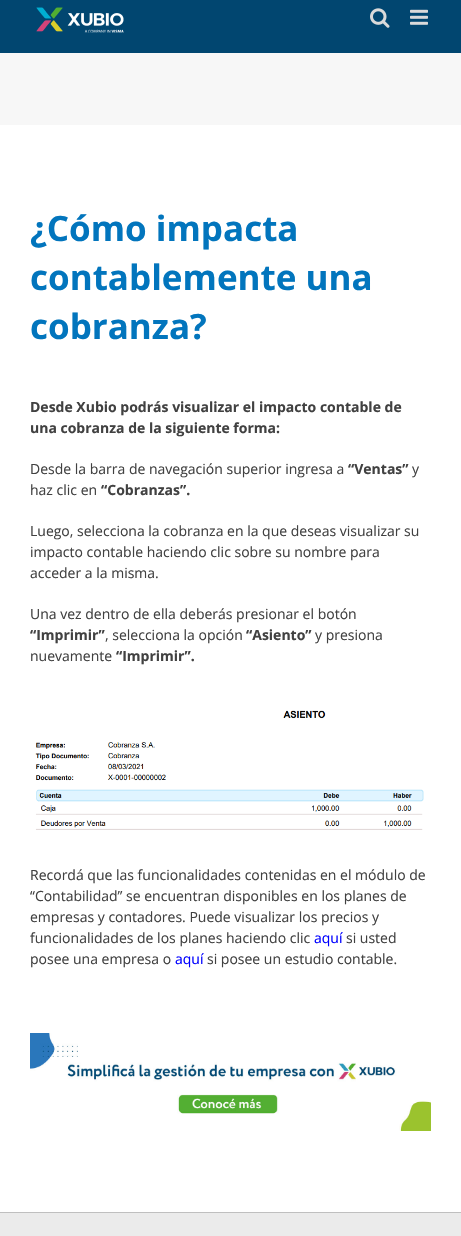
#include "include/core/SkBlurTypes.h"
#include "include/core/SkCanvas.h"
#include "include/core/SkData.h"
#include "include/core/SkFont.h"
#include "include/core/SkFontMgr.h"
#include "include/core/SkImage.h"
#include "include/core/SkMaskFilter.h"
#include "include/core/SkPaint.h"
#include "include/core/SkPathBuilder.h"
#include "include/core/SkTextBlob.h"
#include "include/effects/SkDashPathEffect.h"
#include "include/effects/SkGradientShader.h"
#include "include/utils/SkParsePath.h"

extern sk_sp<SkFontMgr> fontMgr;

static SkFont font(const char* family, int weight, float size, bool italic = false) {
    SkFontStyle style(weight, SkFontStyle::kNormal_Width,
        italic ? SkFontStyle::kItalic_Slant : SkFontStyle::kUpright_Slant);
    SkFont result(fontMgr->matchFamilyStyle(family, style), size);
    result.setSubpixel(true);
    return result;
}

static void drawLabel(SkCanvas* canvas, const char* s, float x, float y, const SkFont& font, SkColor color) {
    SkPaint ink(SkColor4f::FromColor(color));
    ink.setAntiAlias(true);
    canvas->drawString(s, x, y, font, ink);
}

static void fillRect(SkCanvas* canvas, float x, float y, float w, float h, SkColor color) {
    SkPaint ink(SkColor4f::FromColor(color));
    ink.setAntiAlias(true);
    canvas->drawRect(SkRect::MakeXYWH(x, y, w, h), ink);
}

static void drawPhoto(SkCanvas* canvas, const char* path, float x, float y, float w, float h) {
    auto image = SkImages::DeferredFromEncodedData(SkData::MakeFromFileName(path));
    canvas->drawImageRect(image, SkRect::MakeXYWH(x, y, w, h), SkSamplingOptions());
}

void draw(SkCanvas* canvas) {
    SkPaint paint;
    paint.setAntiAlias(true);
    canvas->clear(0xFFFFFFFF);
    fillRect(canvas, 0, 0, 461, 53, 0xFF014670);
    drawPhoto(canvas, "assets/img1.png", 36, 7, 88, 26);
    drawPhoto(canvas, "assets/img2.png", 370, 8, 20, 20);
    drawPhoto(canvas, "assets/img3.png", 410, 9, 18, 16);
    fillRect(canvas, 0, 53, 461, 72, 0xFFF7F7F7);
    SkFont font1 = font("Open Sans", 700, 35);
    drawLabel(canvas, "¿Cómo impacta", 30, 241, font1, 0xFF0275BD);
    drawLabel(canvas, "contablemente una", 30, 290, font1, 0xFF0275BD);
    drawLabel(canvas, "cobranza?", 30, 339, font1, 0xFF0275BD);
    SkFont font2 = font("Open Sans", 700, 14);
    drawLabel(canvas, "Desde Xubio podrás visualizar el impacto contable de", 30, 412, font2, 0xFF414141);
    drawLabel(canvas, "una cobranza de la siguiente forma:", 30, 433, font2, 0xFF414141);
    SkFont font3 = font("Open Sans", 400, 14);
    drawLabel(canvas, "Desde la barra de navegación superior ingresa a", 30, 474, font3, 0xFF414141);
    drawLabel(canvas, "“Ventas”", 348, 474, font2, 0xFF414141);
    drawLabel(canvas, "y", 412, 474, font3, 0xFF414141);
    drawLabel(canvas, "haz clic en", 30, 495, font3, 0xFF414141);
    drawLabel(canvas, "“Cobranzas”.", 101, 495, font2, 0xFF414141);
    drawLabel(canvas, "Luego, selecciona la cobranza en la que deseas visualizar su", 30, 536, font3, 0xFF414141);
    drawLabel(canvas, "impacto contable haciendo clic sobre su nombre para", 30, 557, font3, 0xFF414141);
    drawLabel(canvas, "acceder a la misma.", 30, 578, font3, 0xFF414141);
    drawLabel(canvas, "Una vez dentro de ella deberás presionar el botón", 30, 619, font3, 0xFF414141);
    drawLabel(canvas, "“Imprimir”", 30, 640, font2, 0xFF414141);
    drawLabel(canvas, ", selecciona la opción", 105, 640, font3, 0xFF414141);
    drawLabel(canvas, "“Asiento”", 246, 640, font2, 0xFF414141);
    drawLabel(canvas, "y presiona", 315, 640, font3, 0xFF414141);
    drawLabel(canvas, "nuevamente", 30, 661, font3, 0xFF414141);
    drawLabel(canvas, "“Imprimir”.", 116, 661, font2, 0xFF414141);
    drawPhoto(canvas, "assets/img4.png", 35, 710, 389, 120);
    drawLabel(canvas, "Recordá que las funcionalidades contenidas en el módulo de", 30, 880, font3, 0xFF414141);
    drawLabel(canvas, "“Contabilidad” se encuentran disponibles en los planes de", 30, 901, font3, 0xFF414141);
    drawLabel(canvas, "empresas y contadores. Puede visualizar los precios y", 30, 922, font3, 0xFF414141);
    drawLabel(canvas, "funcionalidades de los planes haciendo clic", 30, 943, font3, 0xFF414141);
    drawLabel(canvas, "aquí", 314, 943, font3, 0xFF0000FF);
    drawLabel(canvas, "si usted", 346, 943, font3, 0xFF414141);
    drawLabel(canvas, "posee una empresa o", 30, 964, font3, 0xFF414141);
    drawLabel(canvas, "aquí", 175, 964, font3, 0xFF0000FF);
    drawLabel(canvas, "si posee un estudio contable.", 207, 964, font3, 0xFF414141);
    drawPhoto(canvas, "assets/img5.png", 30, 1033, 401, 98);
    fillRect(canvas, 0, 1213, 461, 23, 0xFFEBEBEB);
    fillRect(canvas, 0, 1212, 461, 1, 0xFFBFBFBF);
}
